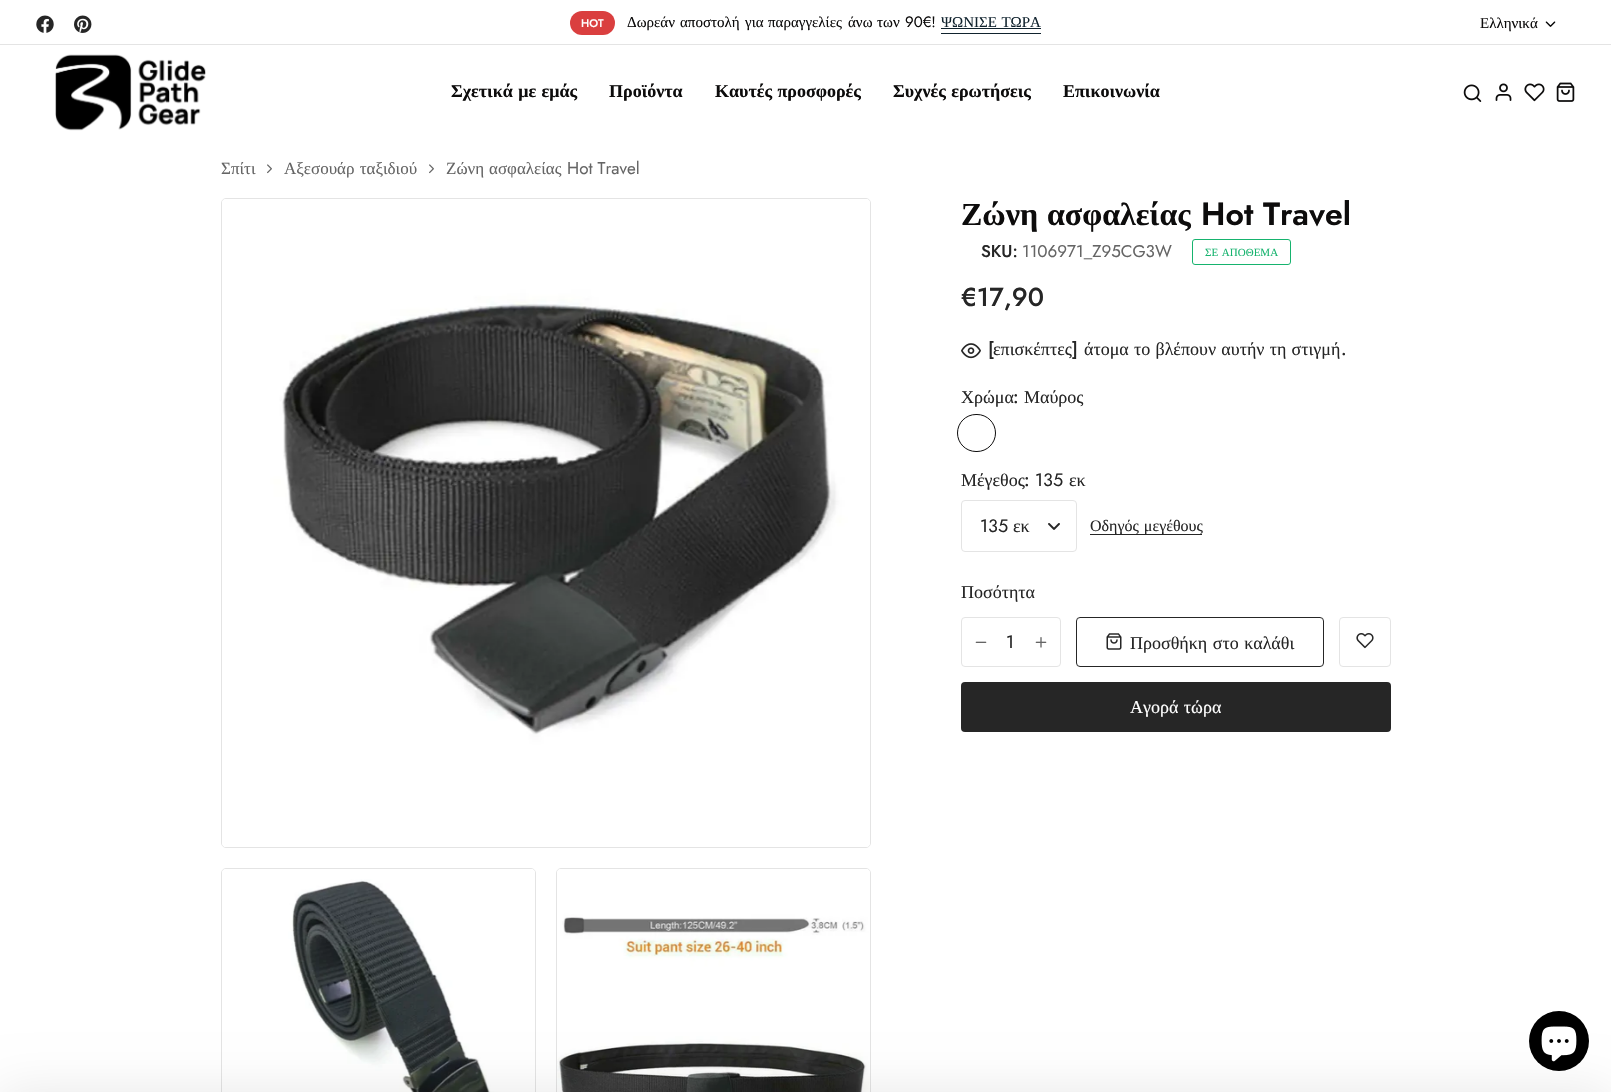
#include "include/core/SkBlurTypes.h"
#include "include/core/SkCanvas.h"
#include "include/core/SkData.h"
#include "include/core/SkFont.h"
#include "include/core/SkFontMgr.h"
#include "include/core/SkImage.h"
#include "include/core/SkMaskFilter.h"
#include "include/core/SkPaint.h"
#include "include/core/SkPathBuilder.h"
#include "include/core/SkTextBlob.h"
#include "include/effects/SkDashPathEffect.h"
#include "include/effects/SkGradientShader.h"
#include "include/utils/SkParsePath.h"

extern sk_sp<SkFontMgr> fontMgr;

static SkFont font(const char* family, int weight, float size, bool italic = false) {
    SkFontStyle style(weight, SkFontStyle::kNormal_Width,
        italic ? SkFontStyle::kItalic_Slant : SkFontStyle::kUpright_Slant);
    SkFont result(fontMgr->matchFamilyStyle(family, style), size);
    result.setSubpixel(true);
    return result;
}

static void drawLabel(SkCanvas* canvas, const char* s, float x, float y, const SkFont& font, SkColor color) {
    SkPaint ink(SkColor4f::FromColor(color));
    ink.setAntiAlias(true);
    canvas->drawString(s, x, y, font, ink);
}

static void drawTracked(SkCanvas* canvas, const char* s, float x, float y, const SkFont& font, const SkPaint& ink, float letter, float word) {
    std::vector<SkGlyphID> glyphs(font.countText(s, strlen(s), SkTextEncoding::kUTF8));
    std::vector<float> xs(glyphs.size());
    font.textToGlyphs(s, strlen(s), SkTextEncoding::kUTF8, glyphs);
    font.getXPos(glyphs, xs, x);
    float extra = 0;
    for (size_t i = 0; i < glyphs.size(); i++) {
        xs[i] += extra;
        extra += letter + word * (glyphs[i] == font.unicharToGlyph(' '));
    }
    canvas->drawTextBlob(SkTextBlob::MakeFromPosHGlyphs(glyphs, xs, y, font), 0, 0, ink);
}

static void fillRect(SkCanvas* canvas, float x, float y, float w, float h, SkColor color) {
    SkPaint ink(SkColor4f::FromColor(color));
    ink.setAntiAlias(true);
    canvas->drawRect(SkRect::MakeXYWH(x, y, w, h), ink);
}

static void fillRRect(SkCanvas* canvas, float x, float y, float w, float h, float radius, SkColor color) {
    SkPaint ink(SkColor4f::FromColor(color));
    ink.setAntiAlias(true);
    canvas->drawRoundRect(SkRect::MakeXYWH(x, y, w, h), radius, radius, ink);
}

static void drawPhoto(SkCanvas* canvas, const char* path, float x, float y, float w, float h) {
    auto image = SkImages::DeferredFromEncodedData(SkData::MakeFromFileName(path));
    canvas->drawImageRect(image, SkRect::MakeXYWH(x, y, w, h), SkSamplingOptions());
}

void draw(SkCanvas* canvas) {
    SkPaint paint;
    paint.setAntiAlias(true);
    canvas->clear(0xFFFFFFFF);
    fillRect(canvas, 0, 44, 1611, 1, 0xFFE4E4E4);
    drawPhoto(canvas, "assets/img1.png", 36, 15, 18, 18);
    drawPhoto(canvas, "assets/img2.png", 74, 15, 18, 18);
    fillRRect(canvas, 570, 11, 45, 24, 12, 0xFFDA3F3F);
    SkFont font1 = font("Jost", 500, 11);
    drawLabel(canvas, "HOT", 581, 27, font1, 0xFFFFFFFF);
    SkFont font2 = font("Liberation Serif", 400, 15);
    drawLabel(canvas, "Δωρεάν", 627, 27, font2, 0xFF0D0C0C);
    drawLabel(canvas, "αποστολή", 680, 27, font2, 0xFF0D0C0C);
    drawLabel(canvas, "για", 745, 27, font2, 0xFF0D0C0C);
    drawLabel(canvas, "παραγγελίες", 768, 27, font2, 0xFF0D0C0C);
    drawLabel(canvas, "άνω", 848, 27, font2, 0xFF0D0C0C);
    drawLabel(canvas, "των", 877, 27, font2, 0xFF0D0C0C);
    SkFont font3 = font("Jost", 400, 15);
    drawLabel(canvas, "90€!", 905, 27, font3, 0xFF0D0C0C);
    paint.setColor(0xFF11232E);
    drawTracked(canvas, "ΨΩΝΙΣΕ ΤΩΡΑ", 941, 27, font2, paint, 0, 0.75f);
    fillRect(canvas, 941, 33, 100, 1, 0xFF11232E);
    fillRect(canvas, 941, 28, 100, 1, 0xFF11232E);
    drawLabel(canvas, "Ελληνικά", 1480, 28, font2, 0xFF0D0C0C);
    drawPhoto(canvas, "assets/img3.png", 1545, 21, 11, 6);
    drawPhoto(canvas, "assets/img4.png", 55, 54, 151, 77);
    SkFont font4 = font("Liberation Serif", 700, 18);
    paint.setColor(0xFF0D0C0C);
    drawTracked(canvas, "Σχετικά με εμάς", 451, 97, font4, paint, 0, 1);
    drawLabel(canvas, "Προϊόντα", 609, 97, font4, 0xFF0D0C0C);
    drawTracked(canvas, "Καυτές προσφορές", 715, 97, font4, paint, 0, 1);
    drawTracked(canvas, "Συχνές ερωτήσεις", 893, 97, font4, paint, 0, 1);
    drawLabel(canvas, "Επικοινωνία", 1063, 97, font4, 0xFF0D0C0C);
    drawPhoto(canvas, "assets/img5.png", 1463, 84, 19, 18);
    drawPhoto(canvas, "assets/img6.png", 1495, 83, 17, 18);
    drawPhoto(canvas, "assets/img7.png", 1524, 83, 21, 19);
    drawPhoto(canvas, "assets/img8.png", 1556, 82, 19, 20);
    SkFont font5 = font("Liberation Serif", 400, 17);
    drawLabel(canvas, "Σπίτι", 221, 174, font5, 0xFF656565);
    drawPhoto(canvas, "assets/img9.png", 267, 164, 5, 10);
    paint.setColor(0xFF656565);
    drawTracked(canvas, "Αξεσουάρ ταξιδιού", 284, 174, font5, paint, 0, 1);
    drawPhoto(canvas, "assets/img9.png", 429, 164, 5, 10);
    drawLabel(canvas, "Ζώνη", 446, 174, font5, 0xFF656565);
    drawLabel(canvas, "ασφαλείας", 489, 174, font5, 0xFF656565);
    SkFont font6 = font("Jost", 400, 17);
    drawLabel(canvas, "Hot Travel", 567, 174, font6, 0xFF656565);
    paint.setStroke(true);
    paint.setStrokeWidth(1);
    paint.setColor(0xFFE4E4E4);
    canvas->drawRoundRect(SkRect::MakeXYWH(221.5f, 198.5f, 649, 649), 4.5f, 4.5f, paint);
    drawPhoto(canvas, "assets/img10.png", 222, 199, 648, 648);
    canvas->drawRoundRect(SkRect::MakeXYWH(221.5f, 868.5f, 314, 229), 4.5f, 4.5f, paint);
    drawPhoto(canvas, "assets/img11.png", 222, 869, 313, 223);
    canvas->drawRoundRect(SkRect::MakeXYWH(556.5f, 868.5f, 314, 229), 4.5f, 4.5f, paint);
    drawPhoto(canvas, "assets/img12.png", 557, 869, 313, 223);
    SkFont font7 = font("Liberation Serif", 700, 32);
    drawLabel(canvas, "Ζώνη", 961, 225, font7, 0xFF0D0C0C);
    drawLabel(canvas, "ασφαλείας", 1047, 225, font7, 0xFF0D0C0C);
    SkFont font8 = font("Jost", 600, 32);
    drawLabel(canvas, "Hot Travel", 1201, 225, font8, 0xFF0D0C0C);
    SkFont font9 = font("Jost", 500, 17);
    drawLabel(canvas, "SKU:", 981, 257, font9, 0xFF262626);
    drawLabel(canvas, "1106971_Z95CG3W", 1022, 257, font6, 0xFF656565);
    paint.setColor(0xFF16B36E);
    canvas->drawRoundRect(SkRect::MakeXYWH(1192.5f, 239.5f, 98, 25), 2.5f, 2.5f, paint);
    SkFont font10 = font("Liberation Serif", 400, 11);
    paint.setStroke(false);
    drawTracked(canvas, "ΣΕ ΑΠΟΘΕΜΑ", 1205, 256, font10, paint, 0, 1);
    SkFont font11 = font("Jost", 500, 26);
    drawLabel(canvas, "€17,90", 961, 306, font11, 0xFF262626);
    drawPhoto(canvas, "assets/img13.png", 961, 343, 20, 16);
    SkFont font12 = font("Jost", 500, 18);
    drawLabel(canvas, "[", 988, 355, font12, 0xFF262626);
    SkFont font13 = font("Liberation Serif", 400, 18);
    drawLabel(canvas, "επισκέπτες", 993, 355, font13, 0xFF262626);
    drawLabel(canvas, "]", 1072, 355, font12, 0xFF262626);
    paint.setColor(0xFF262626);
    drawTracked(canvas, "άτομα το βλέπουν αυτήν τη στιγμή", 1084, 355, font13, paint, 0, 0.75f);
    drawLabel(canvas, ".", 1341, 355, font12, 0xFF262626);
    drawLabel(canvas, "Χρώμα", 961, 403, font13, 0xFF262626);
    drawLabel(canvas, ":", 1013, 403, font12, 0xFF262626);
    drawLabel(canvas, "Μαύρος", 1024, 403, font13, 0xFF262626);
    paint.setStroke(true);
    paint.setColor(0xFF0D0C0C);
    canvas->drawRoundRect(SkRect::MakeXYWH(957.5f, 414.5f, 38, 37), 18.5f, 18.5f, paint);
    drawLabel(canvas, "Μέγεθος", 961, 486, font13, 0xFF262626);
    drawLabel(canvas, ":", 1024, 486, font12, 0xFF262626);
    SkFont font14 = font("Jost", 400, 18);
    drawLabel(canvas, "135", 1035, 486, font14, 0xFF262626);
    drawLabel(canvas, "εκ", 1069, 486, font13, 0xFF262626);
    drawPhoto(canvas, "assets/img14.png", 1048, 523, 12, 7);
    paint.setColor(0xFFE4E4E4);
    canvas->drawRoundRect(SkRect::MakeXYWH(961.5f, 500.5f, 115, 51), 3.5f, 3.5f, paint);
    drawLabel(canvas, "135", 980, 532, font14, 0xFF262626);
    drawLabel(canvas, "εκ", 1013, 532, font13, 0xFF262626);
    fillRect(canvas, 1090, 534, 112, 1, 0xFF262626);
    SkFont font15 = font("Liberation Serif", 400, 16);
    paint.setStroke(false);
    paint.setColor(0xFF262626);
    drawTracked(canvas, "Οδηγός μεγέθους", 1090, 531, font15, paint, 0, 1);
    drawLabel(canvas, "Ποσότητα", 961, 598, font13, 0xFF262626);
    paint.setStroke(true);
    paint.setColor(0xFFE4E4E4);
    canvas->drawRoundRect(SkRect::MakeXYWH(961.5f, 617.5f, 99, 49), 3.5f, 3.5f, paint);
    drawPhoto(canvas, "assets/img15.png", 975, 641, 12, 2);
    drawLabel(canvas, "1", 1006, 648, font14, 0xFF262626);
    drawPhoto(canvas, "assets/img16.png", 1035, 637, 12, 11);
    paint.setColor(0xFF262626);
    canvas->drawRoundRect(SkRect::MakeXYWH(1076.5f, 617.5f, 247, 49), 3.5f, 3.5f, paint);
    drawPhoto(canvas, "assets/img17.png", 1106, 633, 16, 17);
    paint.setStroke(false);
    drawTracked(canvas, "Προσθήκη στο καλάθι", 1130, 649, font13, paint, 0, 1);
    paint.setStroke(true);
    paint.setColor(0xFFE4E4E4);
    canvas->drawRoundRect(SkRect::MakeXYWH(1339.5f, 617.5f, 51, 49), 3.5f, 3.5f, paint);
    drawPhoto(canvas, "assets/img18.png", 1356, 633, 18, 16);
    fillRRect(canvas, 961, 682, 430, 50, 4, 0xFF262626);
    paint.setStroke(false);
    paint.setColor(0xFFFFFFFF);
    drawTracked(canvas, "Αγορά τώρα", 1130, 713, font13, paint, 0, 1);
    paint.setColor(0x17000000);
    paint.setMaskFilter(SkMaskFilter::MakeBlur(kNormal_SkBlurStyle, 25));
    canvas->drawRect(SkRect::MakeXYWH(0, 1092, 1611, 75), paint);
    paint.setMaskFilter(nullptr);
    paint.setColor(0xFF000000);
    canvas->drawCircle(1559, 1041, 30, paint);
    drawPhoto(canvas, "assets/img19.png", 1541, 1026, 36, 36);
}
